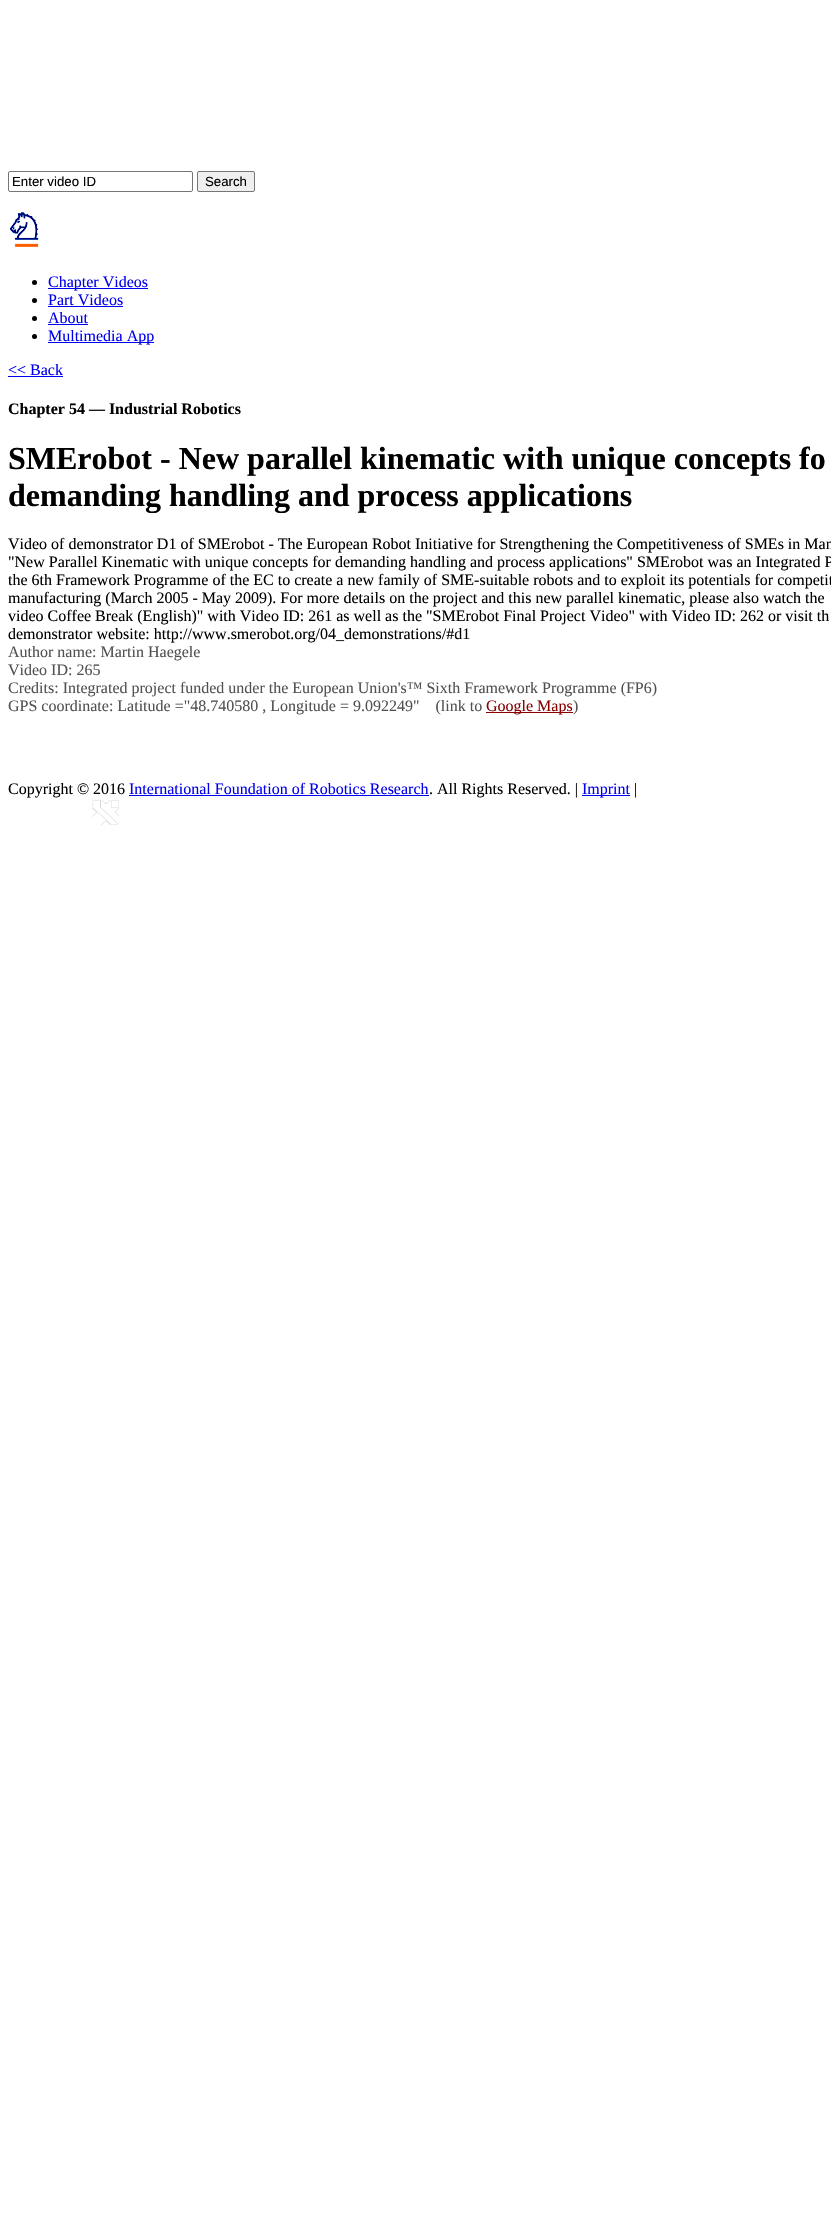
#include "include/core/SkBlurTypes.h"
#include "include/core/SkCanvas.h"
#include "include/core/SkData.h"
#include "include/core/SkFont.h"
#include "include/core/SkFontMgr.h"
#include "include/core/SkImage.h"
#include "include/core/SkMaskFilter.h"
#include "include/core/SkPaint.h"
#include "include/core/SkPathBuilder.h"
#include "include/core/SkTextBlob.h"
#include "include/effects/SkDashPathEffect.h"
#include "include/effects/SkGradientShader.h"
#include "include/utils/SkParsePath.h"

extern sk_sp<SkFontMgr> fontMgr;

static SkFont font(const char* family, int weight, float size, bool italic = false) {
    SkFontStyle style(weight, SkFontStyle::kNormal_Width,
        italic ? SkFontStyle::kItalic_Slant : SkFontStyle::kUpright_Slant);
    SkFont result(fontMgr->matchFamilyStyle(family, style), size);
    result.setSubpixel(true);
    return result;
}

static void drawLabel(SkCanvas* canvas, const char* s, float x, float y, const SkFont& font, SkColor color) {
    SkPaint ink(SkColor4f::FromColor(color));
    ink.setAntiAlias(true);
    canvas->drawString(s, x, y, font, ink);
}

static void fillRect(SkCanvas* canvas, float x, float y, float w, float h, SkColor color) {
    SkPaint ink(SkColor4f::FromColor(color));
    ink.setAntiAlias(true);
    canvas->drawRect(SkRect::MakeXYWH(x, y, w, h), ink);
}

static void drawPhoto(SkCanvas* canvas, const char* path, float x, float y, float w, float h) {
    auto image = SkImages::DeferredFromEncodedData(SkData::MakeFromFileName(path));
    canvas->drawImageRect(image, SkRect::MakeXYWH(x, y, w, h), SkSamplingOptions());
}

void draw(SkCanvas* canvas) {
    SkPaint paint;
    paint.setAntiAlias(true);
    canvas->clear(0xFFFFFFFF);
    paint.setStroke(true);
    paint.setStrokeWidth(1);
    paint.setColor(0xFF767676);
    canvas->drawRoundRect(SkRect::MakeXYWH(8.5f, 171.5f, 184, 20), 1.5f, 1.5f, paint);
    SkFont font1 = font("Liberation Sans", 400, 13.25f);
    drawLabel(canvas, "Enter video ID", 12, 186, font1, 0xFF000000);
    paint.setStroke(false);
    paint.setColor(0xFFEFEFEF);
    canvas->drawRoundRect(SkRect::MakeXYWH(197.5f, 171.5f, 57, 20), 1.5f, 1.5f, paint);
    paint.setStroke(true);
    paint.setColor(0xFF767676);
    canvas->drawRoundRect(SkRect::MakeXYWH(197.5f, 171.5f, 57, 20), 1.5f, 1.5f, paint);
    drawLabel(canvas, "Search", 205, 186, font1, 0xFF000000);
    drawPhoto(canvas, "assets/img1.png", 10, 212, 29, 35);
    paint.setStroke(false);
    paint.setColor(0xFF000000);
    canvas->drawCircle(34.5f, 282.5f, 2.5f, paint);
    fillRect(canvas, 48, 288, 100, 1, 0xFF0000EE);
    SkFont font2 = font("Liberation Serif", 400, 16);
    drawLabel(canvas, "Chapter Videos", 48, 287, font2, 0xFF0000EE);
    canvas->drawCircle(34.5f, 300.5f, 2.5f, paint);
    drawLabel(canvas, "Part Videos", 48, 305, font2, 0xFF0000EE);
    fillRect(canvas, 48, 306, 75, 1, 0xFF0000EE);
    canvas->drawCircle(34.5f, 318.5f, 2.5f, paint);
    drawLabel(canvas, "About", 48, 323, font2, 0xFF0000EE);
    fillRect(canvas, 48, 324, 40, 1, 0xFF0000EE);
    canvas->drawCircle(34.5f, 336.5f, 2.5f, paint);
    fillRect(canvas, 48, 342, 106, 1, 0xFF0000EE);
    drawLabel(canvas, "Multimedia App", 48, 341, font2, 0xFF0000EE);
    drawLabel(canvas, "<< Back", 8, 375, font2, 0xFF0000EE);
    fillRect(canvas, 8, 376, 55, 1, 0xFF0000EE);
    SkFont font3 = font("Liberation Serif", 700, 16);
    drawLabel(canvas, "Chapter 54 — Industrial Robotics", 8, 414, font3, 0xFF000000);
    SkFont font4 = font("Liberation Serif", 700, 32);
    drawLabel(canvas, "SMErobot - New parallel kinematic with unique concepts fo", 8, 469, font4, 0xFF000000);
    drawLabel(canvas, "demanding handling and process applications", 8, 506, font4, 0xFF000000);
    drawLabel(canvas, "Video of demonstrator D1 of SMErobot - The European Robot Initiative for Strengthening the Competitiveness of SMEs in Man", 8, 549, font2, 0xFF000000);
    drawLabel(canvas, "\"New Parallel Kinematic with unique concepts for demanding handling and process applications\" SMErobot was an Integrated P", 8, 567, font2, 0xFF000000);
    drawLabel(canvas, "the 6th Framework Programme of the EC to create a new family of SME-suitable robots and to exploit its potentials for competit", 8, 585, font2, 0xFF000000);
    drawLabel(canvas, "manufacturing (March 2005 - May 2009). For more details on the project and this new parallel kinematic, please also watch the", 8, 603, font2, 0xFF000000);
    drawLabel(canvas, "video Coffee Break (English)\" with Video ID: 261 as well as the \"SMErobot Final Project Video\" with Video ID: 262 or visit th", 8, 621, font2, 0xFF000000);
    drawLabel(canvas, "demonstrator website: http://www.smerobot.org/04_demonstrations/#d1", 8, 639, font2, 0xFF000000);
    drawLabel(canvas, "Author name: Martin Haegele", 8, 657, font2, 0xFF515151);
    drawLabel(canvas, "Video ID: 265", 8, 675, font2, 0xFF515151);
    drawLabel(canvas, "Credits: Integrated project funded under the European Union's™ Sixth Framework Programme (FP6)", 8, 693, font2, 0xFF515151);
    drawLabel(canvas, "GPS coordinate: Latitude =\"48.740580 , Longitude = 9.092249\"    (link to", 8, 711, font2, 0xFF515151);
    fillRect(canvas, 486, 712, 87, 1, 0xFF880000);
    drawLabel(canvas, "Google Maps", 486, 711, font2, 0xFF880000);
    drawLabel(canvas, ")", 573, 711, font2, 0xFF515151);
    drawLabel(canvas, "Copyright © 2016", 8, 794, font2, 0xFF000000);
    drawLabel(canvas, "International Foundation of Robotics Research", 129, 794, font2, 0xFF0000EE);
    fillRect(canvas, 129, 795, 300, 1, 0xFF0000EE);
    drawLabel(canvas, ". All Rights Reserved. |", 429, 794, font2, 0xFF000000);
    fillRect(canvas, 582, 795, 48, 1, 0xFF0000EE);
    drawLabel(canvas, "Imprint", 582, 794, font2, 0xFF0000EE);
    drawLabel(canvas, "|", 634, 794, font2, 0xFF000000);
    drawPhoto(canvas, "assets/img2.png", 92, 800, 27, 25);
}
